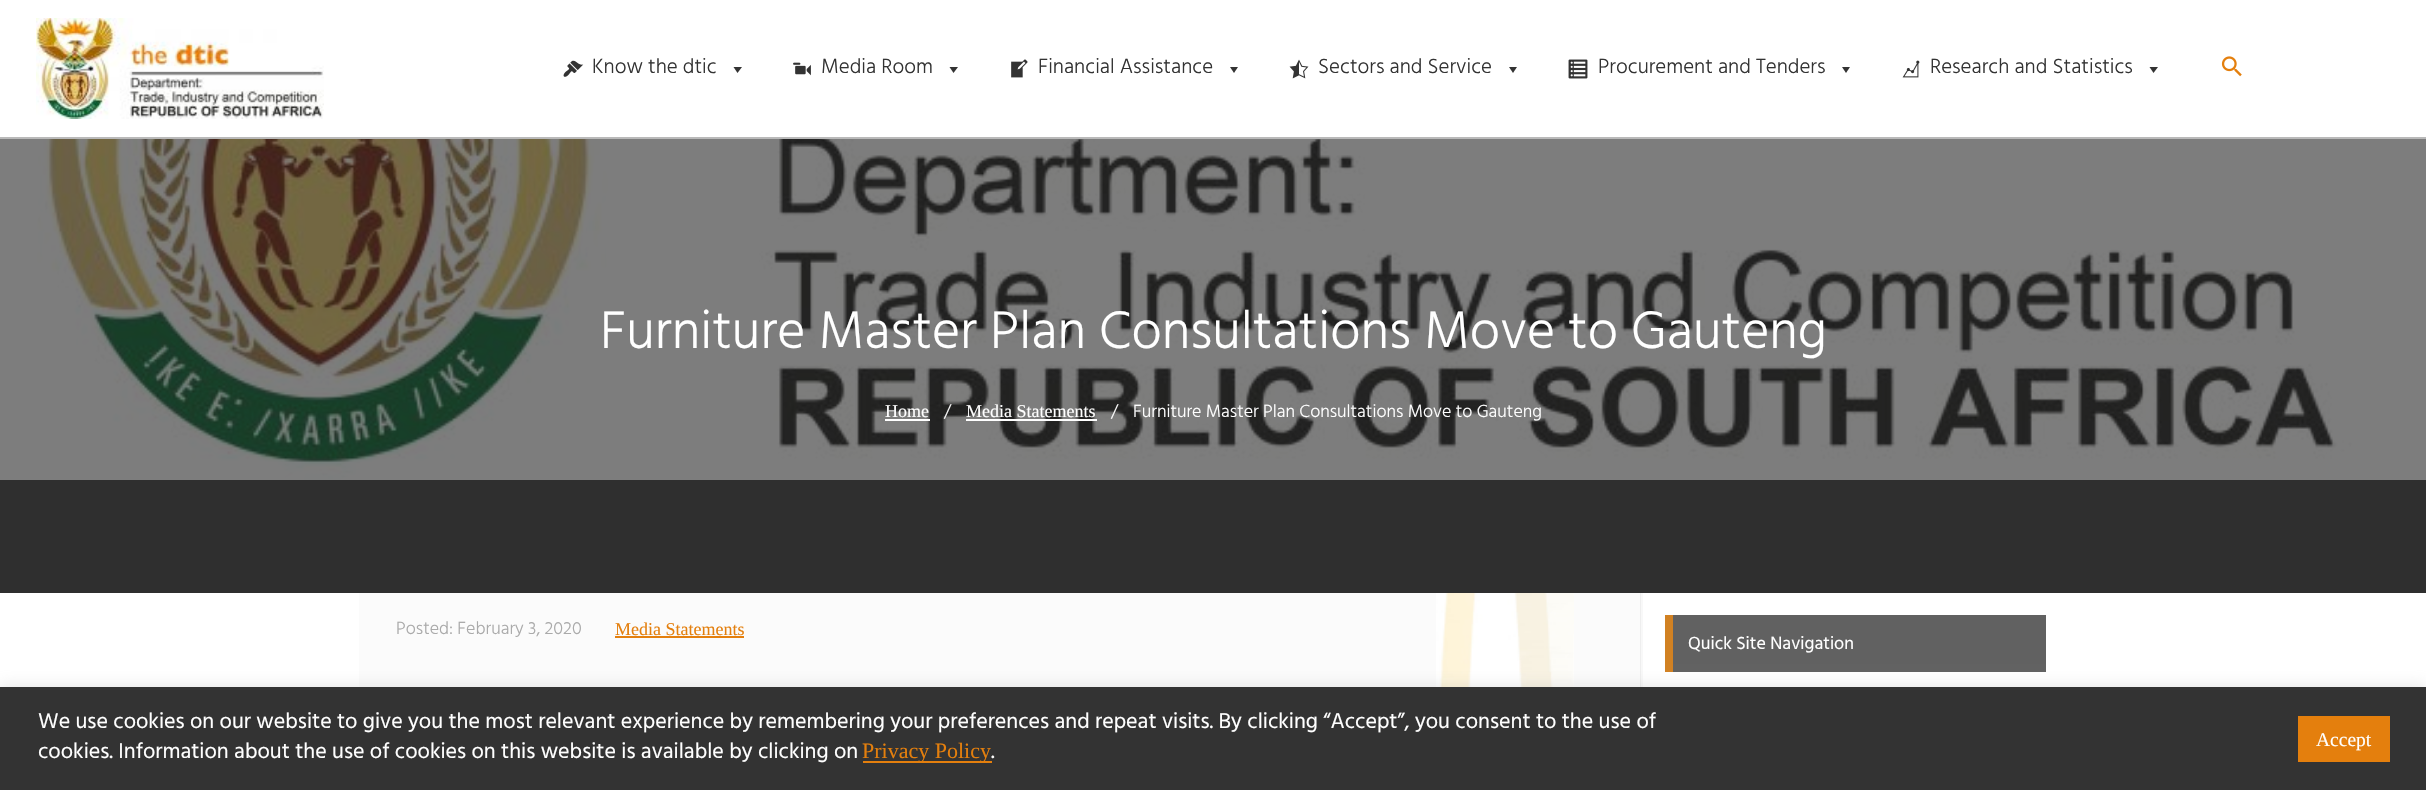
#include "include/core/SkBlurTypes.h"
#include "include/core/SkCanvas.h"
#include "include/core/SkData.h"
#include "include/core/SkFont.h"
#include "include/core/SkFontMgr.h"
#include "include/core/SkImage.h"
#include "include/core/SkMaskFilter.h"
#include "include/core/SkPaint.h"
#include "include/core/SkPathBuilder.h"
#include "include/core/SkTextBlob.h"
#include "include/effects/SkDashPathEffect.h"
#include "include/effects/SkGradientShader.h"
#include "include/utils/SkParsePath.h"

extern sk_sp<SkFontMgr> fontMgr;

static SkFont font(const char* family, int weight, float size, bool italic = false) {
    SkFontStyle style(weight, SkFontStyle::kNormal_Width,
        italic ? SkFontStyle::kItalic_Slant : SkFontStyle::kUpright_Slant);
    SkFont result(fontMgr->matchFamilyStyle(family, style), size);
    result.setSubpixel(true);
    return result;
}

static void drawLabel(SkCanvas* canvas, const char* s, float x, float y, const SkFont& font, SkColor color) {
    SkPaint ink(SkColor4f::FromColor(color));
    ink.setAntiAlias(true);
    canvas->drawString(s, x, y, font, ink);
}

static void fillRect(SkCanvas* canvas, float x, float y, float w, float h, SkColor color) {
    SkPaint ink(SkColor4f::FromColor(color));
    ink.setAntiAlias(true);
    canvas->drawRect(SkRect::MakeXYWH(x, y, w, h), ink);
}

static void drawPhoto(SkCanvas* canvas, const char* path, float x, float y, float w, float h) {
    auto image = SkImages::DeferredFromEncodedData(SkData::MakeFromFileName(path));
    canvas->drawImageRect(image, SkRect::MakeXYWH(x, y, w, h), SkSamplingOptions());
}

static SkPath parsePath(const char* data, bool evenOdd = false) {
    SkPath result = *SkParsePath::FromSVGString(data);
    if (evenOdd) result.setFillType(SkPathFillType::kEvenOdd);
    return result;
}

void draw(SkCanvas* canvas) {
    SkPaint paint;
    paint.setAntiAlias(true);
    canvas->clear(0xFFFFFFFF);
    fillRect(canvas, 0, 137, 2426, 2, 0xFFB9B9B9);
    drawPhoto(canvas, "assets/img1.png", 36, 18, 288, 101);
    drawPhoto(canvas, "assets/img2.png", 563, 60, 21, 17);
    SkFont font1 = font("Hind", 300, 21);
    drawLabel(canvas, "Know the dtic", 592, 73, font1, 0xFF333333);
    paint.setColor(0xFF333333);
    canvas->drawPath(parsePath("M742 67L737.5 73L733.5 67Z"), paint);
    drawPhoto(canvas, "assets/img3.png", 793, 62, 18, 14);
    drawLabel(canvas, "Media Room", 821, 73, font1, 0xFF333333);
    canvas->drawPath(parsePath("M958 67L953.5 73L949.5 67Z"), paint);
    drawPhoto(canvas, "assets/img4.png", 1011, 59, 17, 19);
    drawLabel(canvas, "Financial Assistance", 1038, 73, font1, 0xFF333333);
    canvas->drawPath(parsePath("M1238 67L1234 73L1230 67Z"), paint);
    drawPhoto(canvas, "assets/img5.png", 1289, 59, 20, 20);
    drawLabel(canvas, "Sectors and Service", 1318, 73, font1, 0xFF333333);
    canvas->drawPath(parsePath("M1517 67L1513 73L1509 67Z"), paint);
    drawPhoto(canvas, "assets/img6.png", 1568, 59, 20, 20);
    drawLabel(canvas, "Procurement and Tenders", 1598, 73, font1, 0xFF333333);
    canvas->drawPath(parsePath("M1850 67L1846 73L1842 67Z"), paint);
    drawPhoto(canvas, "assets/img7.png", 1902, 60, 18, 18);
    drawLabel(canvas, "Research and Statistics", 1930, 73, font1, 0xFF333333);
    canvas->drawPath(parsePath("M2158 67L2153.5 73L2149.5 67Z"), paint);
    drawPhoto(canvas, "assets/img8.png", 2221, 56, 21, 21);
    fillRect(canvas, 0, 480, 2426, 113, 0xFF2F2F2F);
    drawPhoto(canvas, "assets/img9.png", 0, 139, 2426, 341);
    SkFont font2 = font("Hind", 300, 54);
    drawLabel(canvas, "Furniture Master Plan Consultations Move to Gauteng", 600, 348, font2, 0xFFFFFFFF);
    SkFont font3 = font("Liberation Serif", 400, 18);
    drawLabel(canvas, "Home", 885, 417, font3, 0xFFFFFFFF);
    fillRect(canvas, 885, 419, 45, 2, 0xFFFFFFFF);
    SkFont font4 = font("Hind", 300, 18);
    drawLabel(canvas, "/", 944, 417, font4, 0xFFFFFFFF);
    drawLabel(canvas, "Media Statements", 966, 417, font3, 0xFFFFFFFF);
    fillRect(canvas, 966, 419, 131, 2, 0xFFFFFFFF);
    drawLabel(canvas, "/", 1111, 417, font4, 0xFFFFFFFF);
    drawLabel(canvas, "Furniture Master Plan Consultations Move to Gauteng", 1133, 417, font4, 0xFFFFFFFF);
    fillRect(canvas, 359, 593, 1281, 94, 0xFFFBFBFB);
    drawPhoto(canvas, "assets/img10.png", 1436, 593, 138, 94);
    fillRect(canvas, 1640, 593, 1, 94, 0xFFEEEEEE);
    drawLabel(canvas, "Posted: February 3, 2020", 396, 634, font4, 0xFFAAAAAA);
    drawLabel(canvas, "Media Statements", 615, 635, font3, 0xFFE47F0D);
    fillRect(canvas, 615, 636, 129, 2, 0xFFE47F0D);
    fillRect(canvas, 1641, 593, 2, 94, 0xFFF8F8F8);
    fillRect(canvas, 1673, 615, 373, 57, 0xFF616161);
    fillRect(canvas, 1665, 615, 8, 57, 0xFFD18122);
    SkFont font5 = font("Hind", 400, 18);
    drawLabel(canvas, "Quick Site Navigation", 1688, 649, font5, 0xFFFFFFFF);
    paint.setColor(0x4DACABAB);
    paint.setMaskFilter(SkMaskFilter::MakeBlur(kNormal_SkBlurStyle, 7.5f));
    canvas->drawRect(SkRect::MakeXYWH(0, 686, 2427, 103), paint);
    paint.setMaskFilter(nullptr);
    fillRect(canvas, 0, 687, 2426, 103, 0xFF333333);
    SkFont font6 = font("Hind", 400, 22);
    drawLabel(canvas, "We use cookies on our website to give you the most relevant experience by remembering your preferences and repeat visits. By clicking “Accept”, you consent to the use of", 38, 728, font6, 0xFFFFFFFF);
    drawLabel(canvas, "cookies. Information about the use of cookies on this website is available by clicking on", 38, 758, font6, 0xFFFFFFFF);
    fillRect(canvas, 863, 761, 129, 2, 0xFFE47F0D);
    SkFont font7 = font("Liberation Serif", 400, 22);
    drawLabel(canvas, "Privacy Policy", 862, 758, font7, 0xFFE47F0D);
    drawLabel(canvas, ".", 991, 758, font6, 0xFFFFFFFF);
    fillRect(canvas, 2298, 716, 92, 46, 0xFFE47F0D);
    SkFont font8 = font("Liberation Serif", 400, 19.5f);
    drawLabel(canvas, "Accept", 2316, 746, font8, 0xFFFFFFFF);
}
